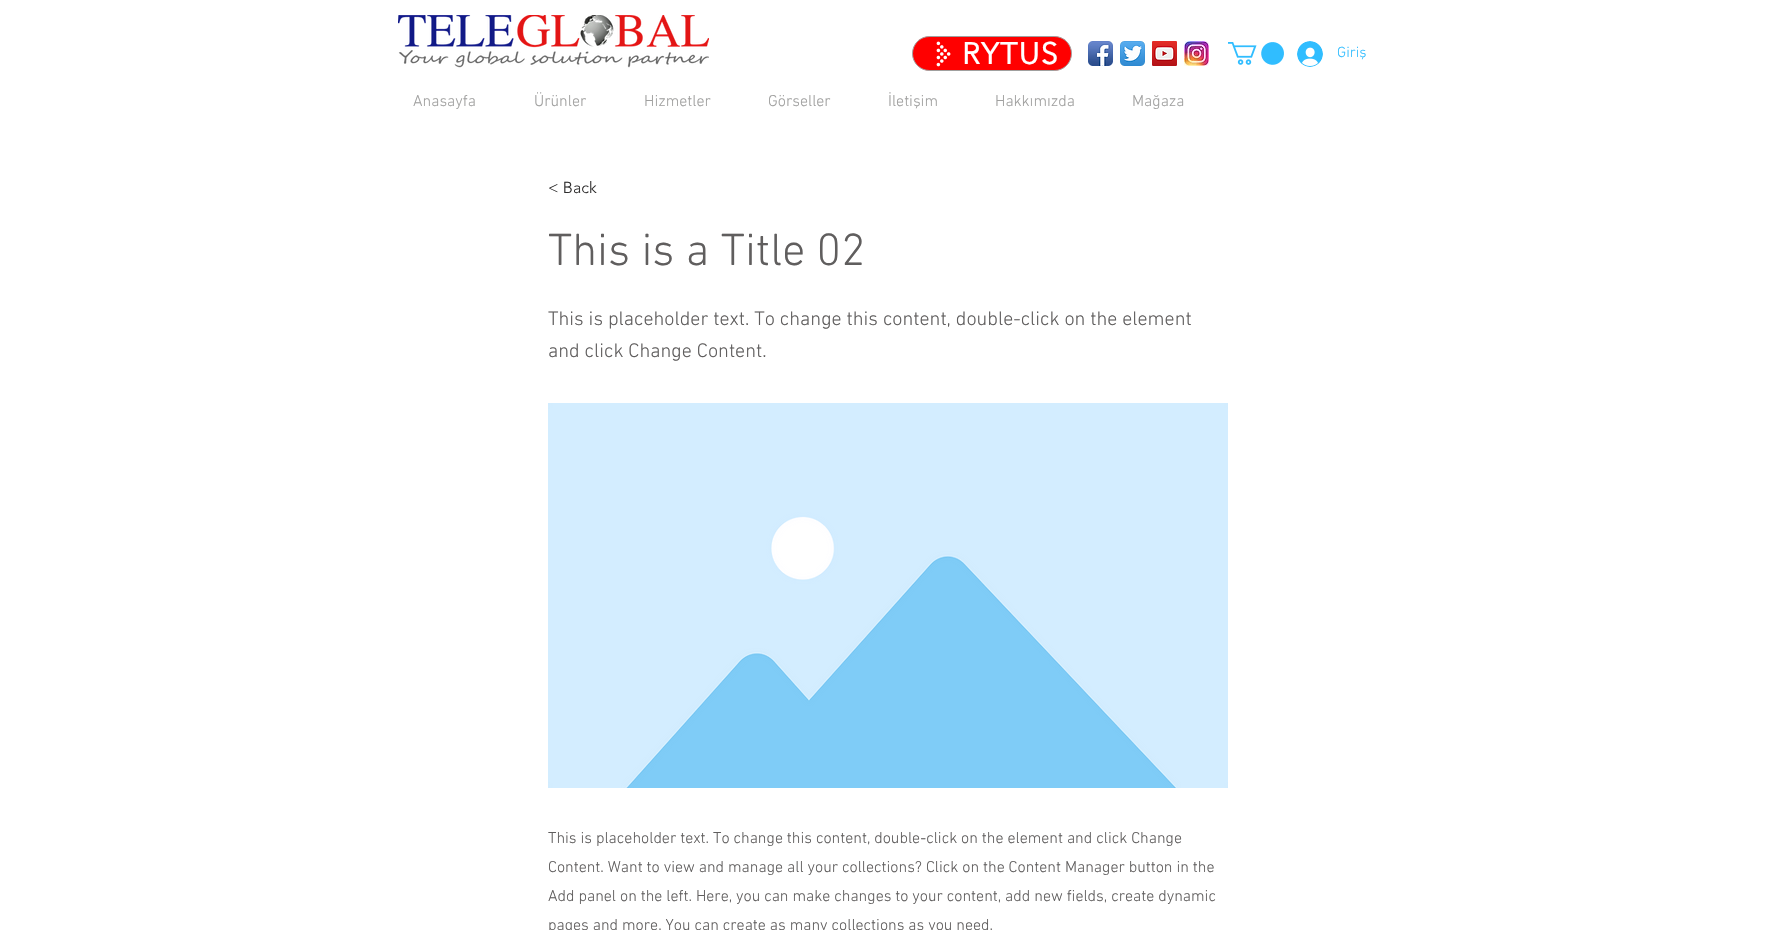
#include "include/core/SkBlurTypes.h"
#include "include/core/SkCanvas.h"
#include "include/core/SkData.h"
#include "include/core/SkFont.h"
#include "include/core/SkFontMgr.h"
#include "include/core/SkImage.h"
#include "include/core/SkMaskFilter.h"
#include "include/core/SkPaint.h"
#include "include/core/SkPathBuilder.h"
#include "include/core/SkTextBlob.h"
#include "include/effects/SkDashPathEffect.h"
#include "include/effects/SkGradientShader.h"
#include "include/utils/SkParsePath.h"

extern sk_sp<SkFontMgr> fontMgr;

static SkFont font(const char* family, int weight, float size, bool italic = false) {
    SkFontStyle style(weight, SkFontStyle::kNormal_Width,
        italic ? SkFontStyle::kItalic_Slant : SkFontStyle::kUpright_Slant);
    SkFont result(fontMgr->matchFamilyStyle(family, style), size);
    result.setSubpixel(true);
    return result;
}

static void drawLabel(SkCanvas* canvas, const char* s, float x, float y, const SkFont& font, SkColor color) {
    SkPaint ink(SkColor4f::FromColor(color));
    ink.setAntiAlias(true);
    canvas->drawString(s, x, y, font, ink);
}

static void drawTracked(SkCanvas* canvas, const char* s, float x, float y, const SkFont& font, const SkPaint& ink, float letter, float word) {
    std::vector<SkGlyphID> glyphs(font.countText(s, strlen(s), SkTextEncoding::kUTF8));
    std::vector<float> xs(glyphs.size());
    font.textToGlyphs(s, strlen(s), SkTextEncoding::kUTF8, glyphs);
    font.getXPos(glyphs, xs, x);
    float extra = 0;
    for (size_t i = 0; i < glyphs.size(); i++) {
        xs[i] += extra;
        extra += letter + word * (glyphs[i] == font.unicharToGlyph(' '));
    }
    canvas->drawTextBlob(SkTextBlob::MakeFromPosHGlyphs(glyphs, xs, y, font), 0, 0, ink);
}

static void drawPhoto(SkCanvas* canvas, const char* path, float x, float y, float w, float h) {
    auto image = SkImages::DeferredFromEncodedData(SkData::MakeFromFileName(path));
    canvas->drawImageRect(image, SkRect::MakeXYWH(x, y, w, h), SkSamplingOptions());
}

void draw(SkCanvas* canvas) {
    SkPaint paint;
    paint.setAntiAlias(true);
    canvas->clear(0xFFFFFFFF);
    drawPhoto(canvas, "assets/img1.png", 398, 15, 311, 53);
    paint.setColor(0xFFFF0000);
    canvas->drawRoundRect(SkRect::MakeXYWH(912.5f, 36.5f, 159, 34), 17, 17, paint);
    paint.setStroke(true);
    paint.setStrokeWidth(1);
    paint.setColor(0xFFA0A09F);
    canvas->drawRoundRect(SkRect::MakeXYWH(912.5f, 36.5f, 159, 34), 17, 17, paint);
    drawPhoto(canvas, "assets/img2.png", 936, 41, 15, 26);
    SkFont font1 = font("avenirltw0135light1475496", 700, 30);
    paint.setStroke(false);
    paint.setColor(0xFFFFFFFF);
    drawTracked(canvas, "RYTUS", 962, 64, font1, paint, 1.5f, 0);
    drawPhoto(canvas, "assets/img3.png", 1088, 41, 25, 25);
    drawPhoto(canvas, "assets/img4.png", 1120, 41, 25, 25);
    drawPhoto(canvas, "assets/img5.png", 1152, 41, 25, 25);
    drawPhoto(canvas, "assets/img6.png", 1184, 41, 25, 25);
    drawPhoto(canvas, "assets/img7.png", 1228, 42, 56, 23);
    drawPhoto(canvas, "assets/img8.png", 1297, 41, 26, 26);
    SkFont font2 = font("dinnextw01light", 300, 15);
    drawLabel(canvas, "Giriş", 1337, 57, font2, 0xFF30BDFF);
    SkFont font3 = font("dinnextw01light", 300, 16);
    drawLabel(canvas, "Anasayfa", 413, 106, font3, 0xFFA0A09F);
    drawLabel(canvas, "Ürünler", 534, 106, font3, 0xFFA0A09F);
    drawLabel(canvas, "Hizmetler", 644, 106, font3, 0xFFA0A09F);
    drawLabel(canvas, "Görseller", 768, 106, font3, 0xFFA0A09F);
    drawLabel(canvas, "İletişim", 888, 106, font3, 0xFFA0A09F);
    drawLabel(canvas, "Hakkımızda", 995, 106, font3, 0xFFA0A09F);
    drawLabel(canvas, "Mağaza", 1132, 106, font3, 0xFFA0A09F);
    SkFont font4 = font("avenirltw0135light1475496", 300, 16);
    drawLabel(canvas, "< Back", 548, 193, font4, 0xFF2F2E2E);
    SkFont font5 = font("dinnextw01light", 300, 46);
    drawLabel(canvas, "This is a Title 02", 548, 265, font5, 0xFF605E5E);
    SkFont font6 = font("dinnextw01light", 300, 20);
    drawLabel(canvas, "This is placeholder text. To change this content, double-click on the element", 548, 325, font6, 0xFF605E5E);
    drawLabel(canvas, "and click Change Content.", 548, 357, font6, 0xFF605E5E);
    drawPhoto(canvas, "assets/img9.png", 548, 403, 680, 385);
    drawLabel(canvas, "This is placeholder text. To change this content, double-click on the element and click Change", 548, 843, font3, 0xFF605E5E);
    drawLabel(canvas, "Content. Want to view and manage all your collections? Click on the Content Manager button in the", 548, 872, font3, 0xFF605E5E);
    drawLabel(canvas, "Add panel on the left. Here, you can make changes to your content, add new fields, create dynamic", 548, 901, font3, 0xFF605E5E);
    drawLabel(canvas, "pages and more. You can create as many collections as you need.", 548, 930, font3, 0xFF605E5E);
}
